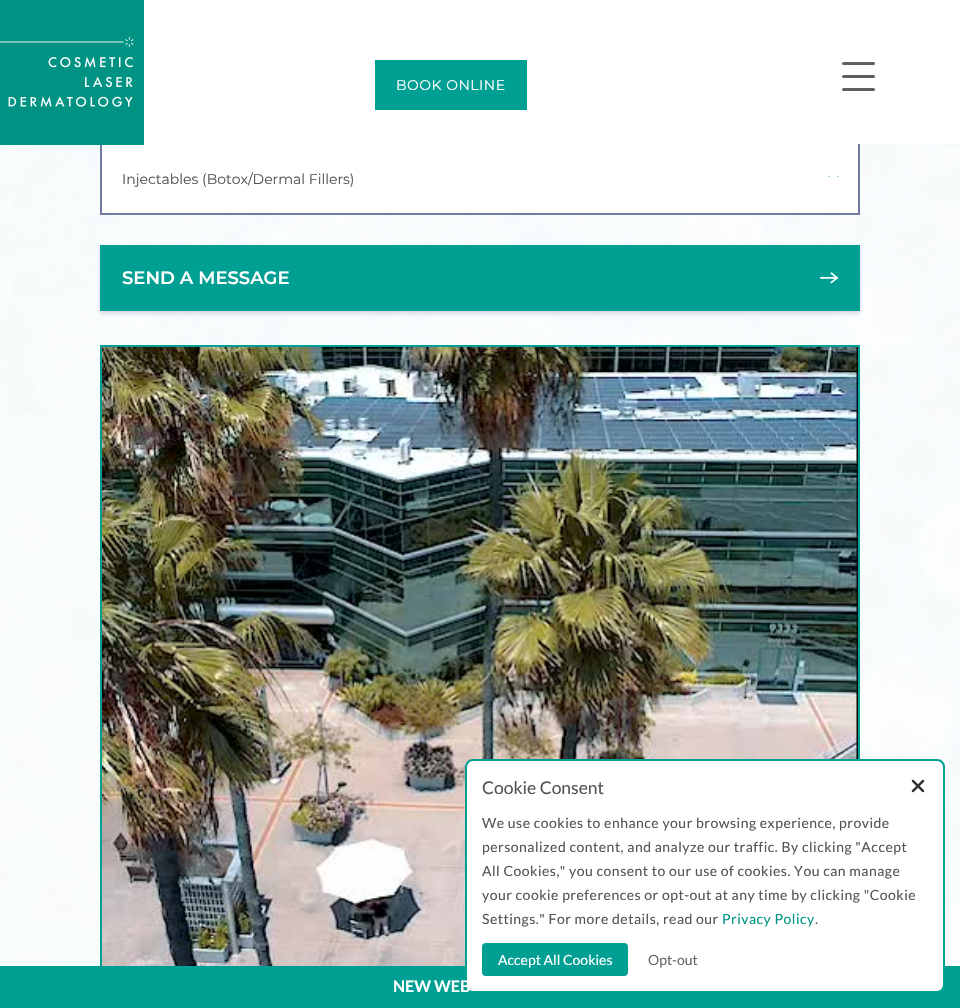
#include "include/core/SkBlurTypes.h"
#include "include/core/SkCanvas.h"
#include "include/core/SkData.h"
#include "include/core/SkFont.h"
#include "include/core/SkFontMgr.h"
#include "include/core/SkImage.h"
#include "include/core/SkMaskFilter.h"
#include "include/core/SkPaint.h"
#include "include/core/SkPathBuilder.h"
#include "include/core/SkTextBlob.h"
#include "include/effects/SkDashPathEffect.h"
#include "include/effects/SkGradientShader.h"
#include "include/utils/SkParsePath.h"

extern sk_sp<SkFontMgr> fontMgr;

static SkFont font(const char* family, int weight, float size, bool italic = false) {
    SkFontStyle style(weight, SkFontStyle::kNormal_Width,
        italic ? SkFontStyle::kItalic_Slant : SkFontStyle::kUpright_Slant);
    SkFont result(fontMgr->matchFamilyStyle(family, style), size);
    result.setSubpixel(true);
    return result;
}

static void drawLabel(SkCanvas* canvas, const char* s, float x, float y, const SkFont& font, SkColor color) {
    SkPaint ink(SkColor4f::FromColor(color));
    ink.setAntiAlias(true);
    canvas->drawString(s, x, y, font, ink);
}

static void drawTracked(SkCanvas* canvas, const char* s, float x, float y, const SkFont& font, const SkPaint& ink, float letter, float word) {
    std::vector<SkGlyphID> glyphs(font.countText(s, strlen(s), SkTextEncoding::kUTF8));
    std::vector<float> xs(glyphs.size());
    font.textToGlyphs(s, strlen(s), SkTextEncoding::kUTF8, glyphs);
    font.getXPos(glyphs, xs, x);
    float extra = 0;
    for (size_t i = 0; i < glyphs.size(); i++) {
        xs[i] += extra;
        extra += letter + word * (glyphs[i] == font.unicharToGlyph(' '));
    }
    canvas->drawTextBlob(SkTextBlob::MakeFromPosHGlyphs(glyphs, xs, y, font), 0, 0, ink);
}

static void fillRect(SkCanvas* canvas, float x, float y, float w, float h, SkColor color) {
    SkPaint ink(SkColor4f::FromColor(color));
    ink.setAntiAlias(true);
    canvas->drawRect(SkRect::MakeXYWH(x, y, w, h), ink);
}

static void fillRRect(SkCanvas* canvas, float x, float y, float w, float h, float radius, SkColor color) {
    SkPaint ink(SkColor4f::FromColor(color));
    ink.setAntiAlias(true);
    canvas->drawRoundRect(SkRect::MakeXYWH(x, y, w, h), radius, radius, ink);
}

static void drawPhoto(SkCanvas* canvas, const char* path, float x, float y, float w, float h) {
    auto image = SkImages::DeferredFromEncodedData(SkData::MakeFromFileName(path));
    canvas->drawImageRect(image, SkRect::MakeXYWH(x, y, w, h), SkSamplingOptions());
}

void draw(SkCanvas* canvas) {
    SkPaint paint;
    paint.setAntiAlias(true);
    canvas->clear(0xFFFFFFFF);
    drawPhoto(canvas, "assets/img2.png", 0, 144, 960, 822);
    paint.setColor(0xFFFFFFFF);
    canvas->drawRect(SkRect::MakeXYWH(101, 143, 758, 71), paint);
    paint.setStroke(true);
    paint.setStrokeWidth(2);
    paint.setColor(0xFF6F7BA0);
    canvas->drawRect(SkRect::MakeXYWH(101, 143, 758, 71), paint);
    fillRect(canvas, 144, 142, 716, 2, 0xFFFFFFFF);
    drawPhoto(canvas, "assets/img1.png", 0, 0, 144, 145);
    fillRect(canvas, 375, 60, 152, 50, 0xFF009F93);
    SkFont font1 = font("Montserrat", 400, 14);
    paint.setStroke(false);
    paint.setColor(0xFFFFFFFF);
    drawTracked(canvas, "BOOK ONLINE", 396, 90, font1, paint, 0.5f, 0);
    fillRRect(canvas, 842, 62, 33, 3, 1.5f, 0xFF5E5F61);
    fillRRect(canvas, 842, 75, 33, 3, 1.5f, 0xFF5E5F61);
    fillRRect(canvas, 842, 88, 33, 3, 1.5f, 0xFF5E5F61);
    drawLabel(canvas, "Injectables (Botox/Dermal Fillers)", 122, 184, font1, 0xFF545456);
    drawPhoto(canvas, "assets/img3.png", 828, 176, 11, 1);
    paint.setColor(0x3D6F7BA0);
    paint.setMaskFilter(SkMaskFilter::MakeBlur(kNormal_SkBlurStyle, 2));
    canvas->drawRect(SkRect::MakeXYWH(100, 248, 760, 66), paint);
    paint.setMaskFilter(nullptr);
    fillRect(canvas, 100, 245, 760, 66, 0xFF009F93);
    SkFont font2 = font("Montserrat", 600, 18);
    drawLabel(canvas, "SEND A MESSAGE", 122, 284, font2, 0xFFFFFFFF);
    drawPhoto(canvas, "assets/img4.png", 820, 272, 18, 12);
    paint.setStroke(true);
    paint.setColor(0xFF009F93);
    canvas->drawRect(SkRect::MakeXYWH(101, 346, 758, 654), paint);
    drawPhoto(canvas, "assets/img5.png", 102, 347, 756, 619);
    fillRect(canvas, 0, 966, 960, 42, 0xFF009F93);
    paint.setStroke(false);
    paint.setColor(0xFFFFFFFF);
    canvas->drawRoundRect(SkRect::MakeXYWH(466, 760, 478, 232), 7, 7, paint);
    paint.setStroke(true);
    paint.setColor(0xFF009F93);
    canvas->drawRoundRect(SkRect::MakeXYWH(466, 760, 478, 232), 7, 7, paint);
    SkFont font3 = font("Lato", 400, 17.5f);
    drawLabel(canvas, "Cookie Consent", 482, 794, font3, 0xFF545456);
    drawPhoto(canvas, "assets/img6.png", 911, 779, 14, 14);
    SkFont font4 = font("Lato", 400, 14);
    paint.setStroke(false);
    paint.setColor(0xFF545456);
    drawTracked(canvas, "We use cookies to enhance your browsing experience, provide", 482, 828, font4, paint, 0.5f, 0);
    drawTracked(canvas, "personalized content, and analyze our traffic. By clicking \"Accept", 482, 852, font4, paint, 0.5f, 0);
    drawTracked(canvas, "All Cookies,\" you consent to our use of cookies. You can manage", 482, 876, font4, paint, 0.5f, 0);
    drawTracked(canvas, "your cookie preferences or opt-out at any time by clicking \"Cookie", 482, 900, font4, paint, 0.5f, 0);
    drawTracked(canvas, "Settings.\" For more details, read our", 482, 924, font4, paint, 0.5f, 0);
    paint.setColor(0xFF009482);
    drawTracked(canvas, "Privacy Policy", 722, 924, font4, paint, 0.5f, 0);
    paint.setColor(0xFF545456);
    drawTracked(canvas, ".", 815, 924, font4, paint, 0.5f, 0);
    fillRRect(canvas, 482, 943, 146, 33, 4, 0xFF009F93);
    drawLabel(canvas, "Accept All Cookies", 498, 965, font4, 0xFFFFFFFF);
    drawLabel(canvas, "Opt-out", 648, 965, font4, 0xFF666666);
    SkFont font5 = font("Lato", 700, 16);
    drawLabel(canvas, "NEW WEB", 393, 992, font5, 0xFFFFFFFF);
}
